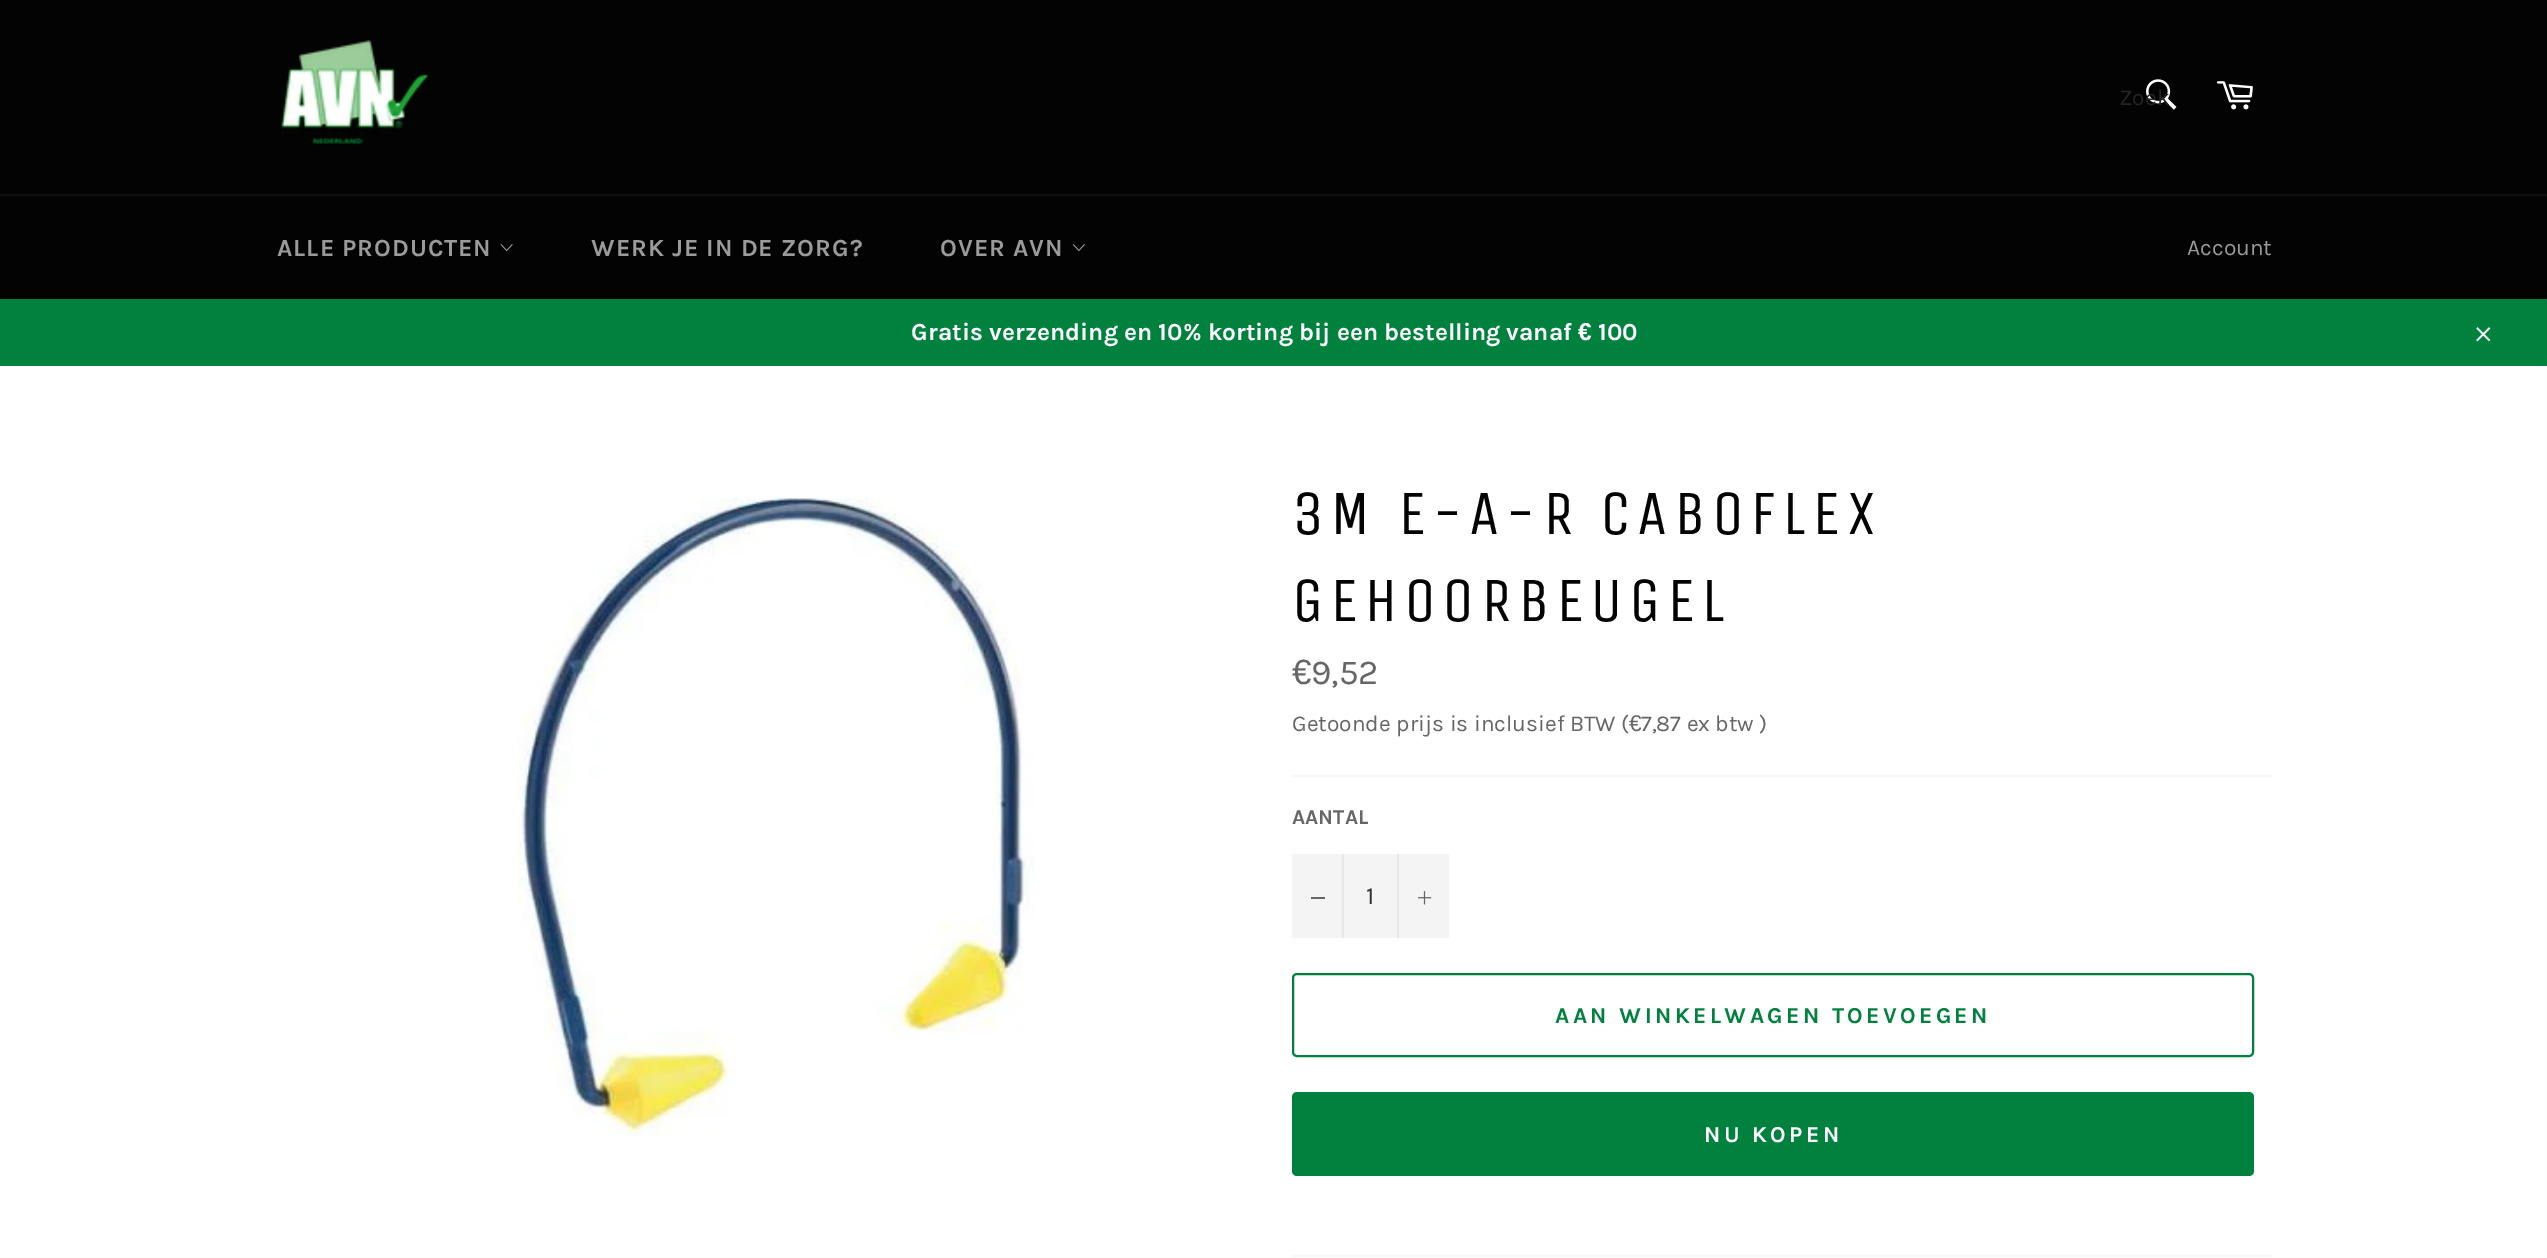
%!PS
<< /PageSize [2547 1258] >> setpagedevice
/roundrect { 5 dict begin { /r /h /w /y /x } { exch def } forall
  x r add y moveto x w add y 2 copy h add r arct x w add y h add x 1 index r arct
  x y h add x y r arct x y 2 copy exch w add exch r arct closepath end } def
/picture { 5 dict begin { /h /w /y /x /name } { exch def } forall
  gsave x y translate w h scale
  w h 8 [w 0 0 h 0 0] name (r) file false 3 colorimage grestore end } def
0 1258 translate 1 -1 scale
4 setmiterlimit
0.012 setgray
0 0 2547 1258 rectfill
(img1.rgb) 281 39 148 106 picture
(img2.rgb) 2146 79 31 31 picture
/Karla-Regular [22.75 0 0 -22.75 0 0] selectfont
0.141 setgray
2119 105 moveto (Zoek) show
(img3.rgb) 2216 81 37 29 picture
0.063 setgray
0 194 2547 2 rectfill
/Karla-Bold [24.5 0 0 -24.5 0 0] selectfont
0.604 setgray
277 256 moveto 1 0 (ALLE PRODUCTEN) ashow
(img4.rgb) 500 244 13 8 picture
591 256 moveto 1 0 (WERK JE IN DE ZORG?) ashow
940 256 moveto 1 0 (OVER AVN) ashow
(img5.rgb) 1072 244 13 8 picture
/Karla-Regular [22.75 0 0 -22.75 0 0] selectfont
2187 255 moveto (Account) show
0 0.51 0.243 setrgbcolor
0 299 2547 67 rectfill
/Karla-Bold [24.5 0 0 -24.5 0 0] selectfont
1 setgray
911 340 moveto (Gratis verzending en 10% korting bij een bestelling vanaf) show
/LiberationSans-Bold [24.5 0 0 -24.5 0 0] selectfont
1578 340 moveto (€) show
/Karla-Bold [24.5 0 0 -24.5 0 0] selectfont
1598 340 moveto (100) show
(img6.rgb) 2476 327 15 15 picture
0 366 2547 892 rectfill
(img7.rgb) 518 498 517 638 picture
/UnicaOne-Regular [63 0 0 -63 0 0] selectfont
0.012 setgray
1292 534 moveto 6.25 0 (3M E-A-R CABOFLEX) ashow
1292 621 moveto 6.25 0 (GEHOORBEUGEL) ashow
/LiberationSans-Regular [35 0 0 -35 0 0] selectfont
0.4 setgray
1292 684 moveto (€) show
/Karla-Regular [35 0 0 -35 0 0] selectfont
1311 684 moveto (9,52) show
/Karla-Regular [22.75 0 0 -22.75 0 0] selectfont
1292 731 moveto (Getoonde prijs is inclusief BTW \() show
/LiberationSans-Regular [22.75 0 0 -22.75 0 0] selectfont
1629 731 moveto (€) show
/Karla-Regular [22.75 0 0 -22.75 0 0] selectfont
1641 731 moveto (7,87 ex btw \)) show
0.969 setgray
1292 775 980 2 rectfill
/Karla-Bold [21 0 0 -21 0 0] selectfont
0.4 setgray
1292 824 moveto (AANTAL) show
0.957 setgray
1292 854 157 84 rectfill
0.906 setgray
1342 854 2 84 rectfill
0.4 setgray
1311 897 14 2 rectfill
/Karla-Regular [24.5 0 0 -24.5 0 0] selectfont
0.2 setgray
1366 904 moveto (1) show
0.906 setgray
1397 854 2 84 rectfill
(img8.rgb) 1418 891 14 14 picture
0 0.51 0.243 setrgbcolor
2 setlinewidth
1293 974 960 82 4 roundrect stroke
/Karla-Bold [22.75 0 0 -22.75 0 0] selectfont
1555 1023 moveto 3.4 0 (AAN WINKELWAGEN TOEVOEGEN) ashow
1292 1092 962 84 5 roundrect fill
1 setgray
1704 1142 moveto 3.4 0 (NU KOPEN) ashow
0.969 setgray
1292 1255 980 2 rectfill
showpage
